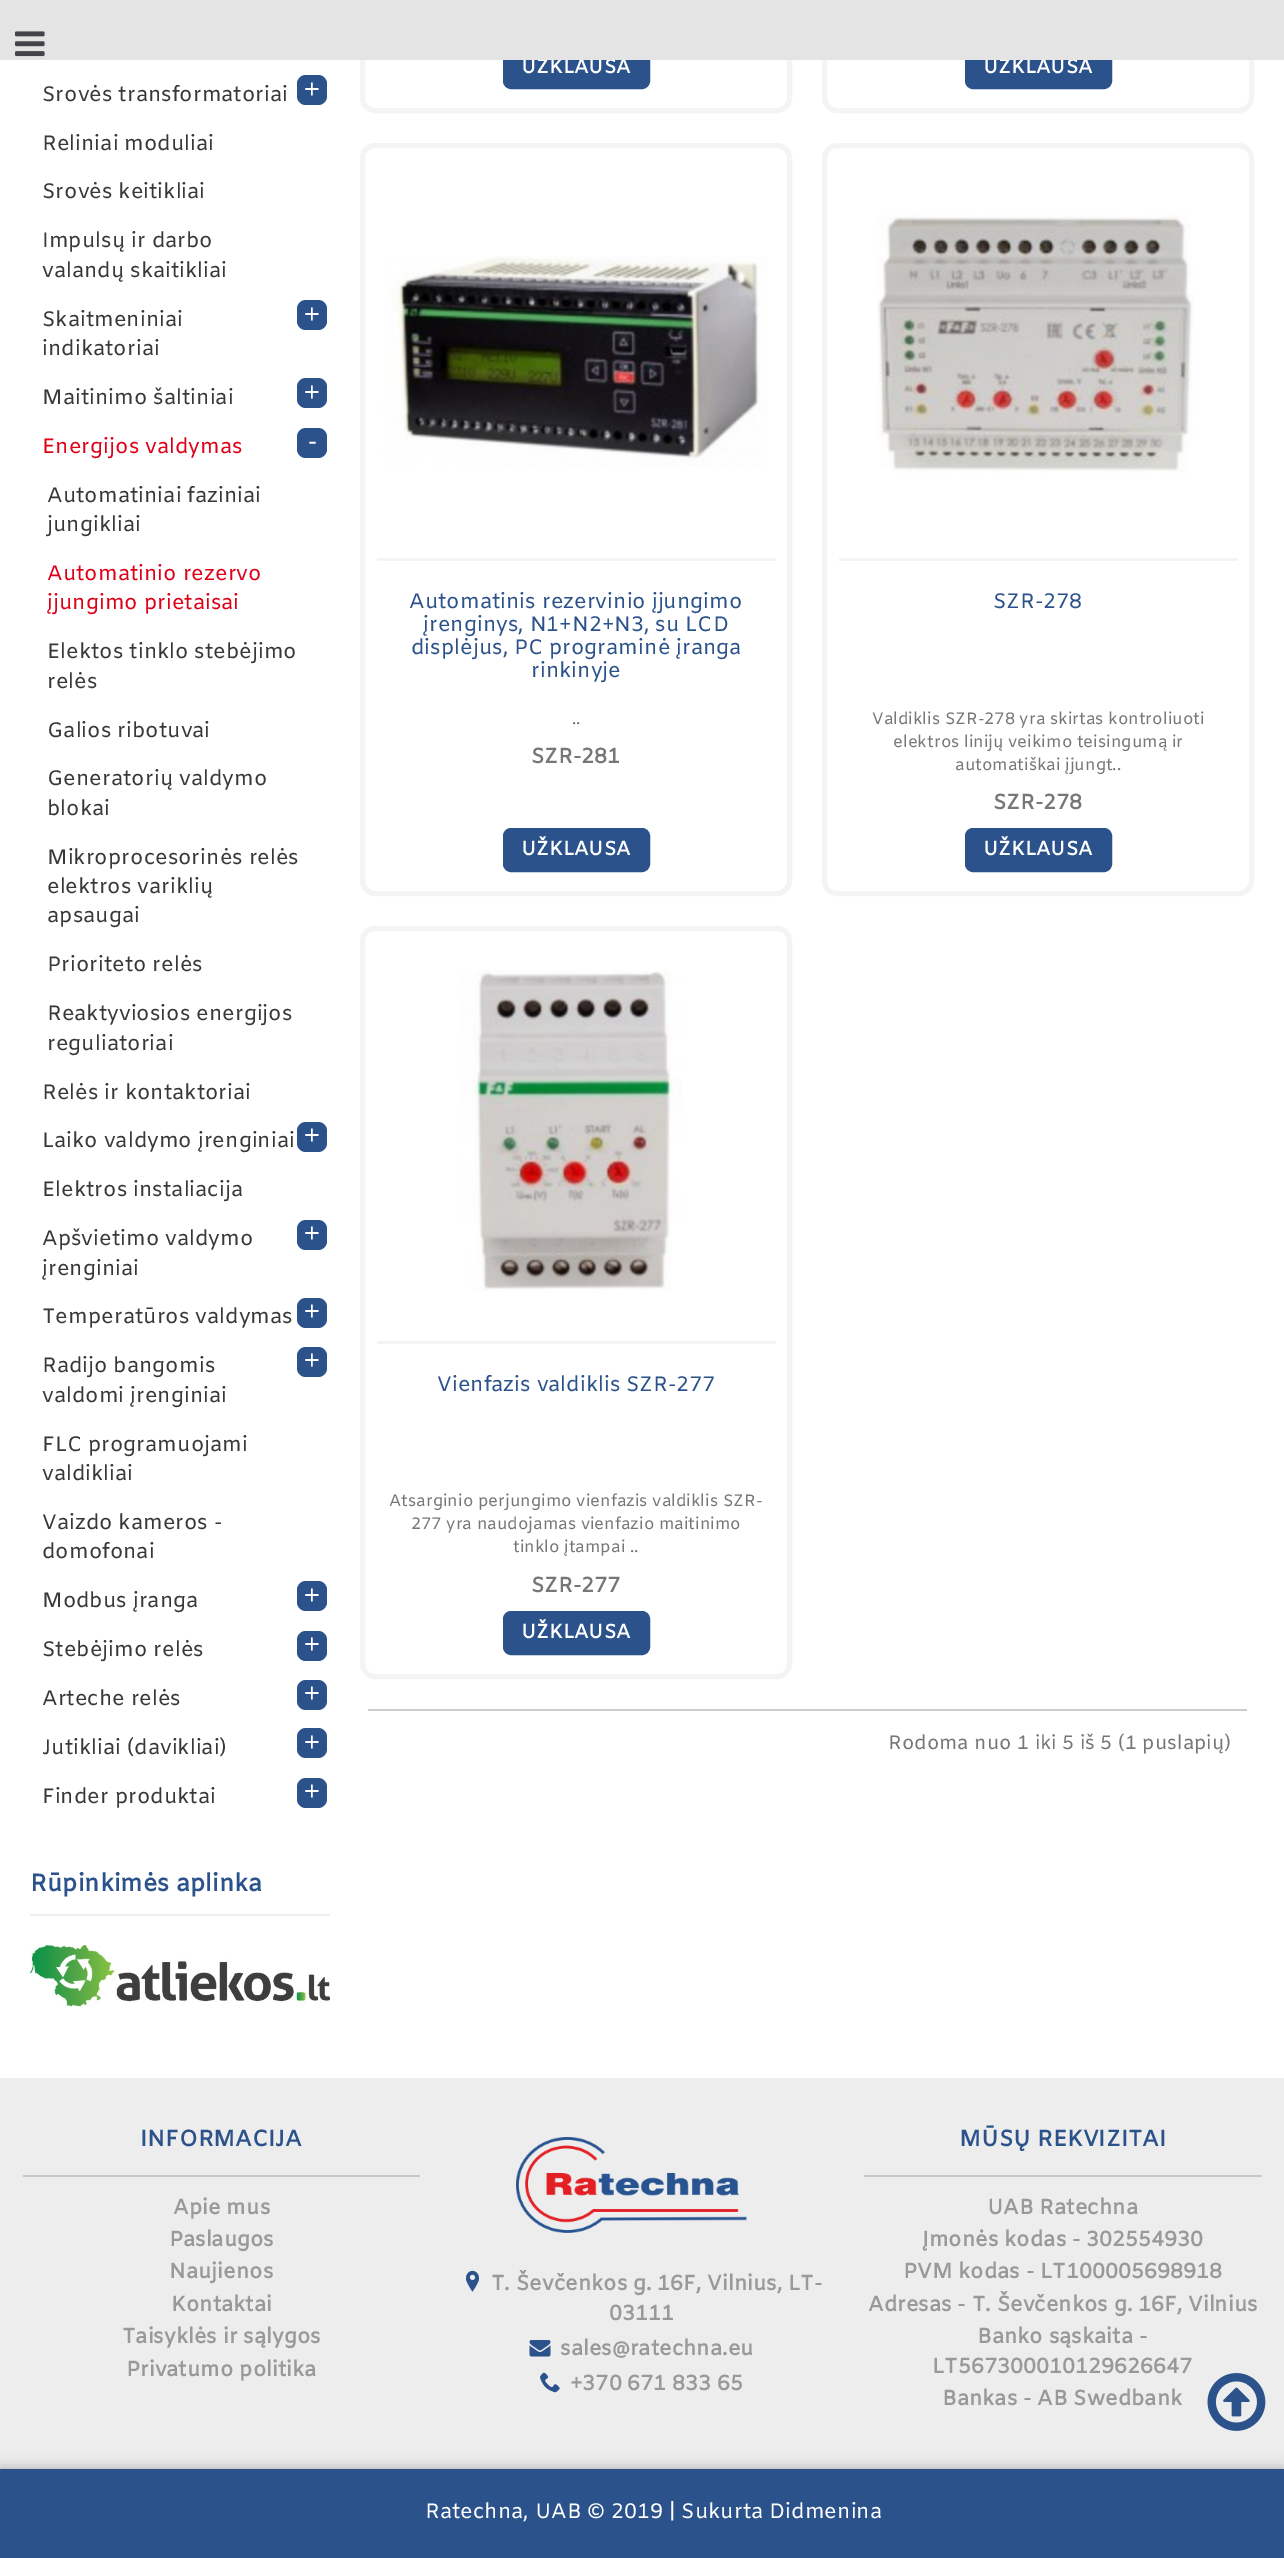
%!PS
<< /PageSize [1284 2558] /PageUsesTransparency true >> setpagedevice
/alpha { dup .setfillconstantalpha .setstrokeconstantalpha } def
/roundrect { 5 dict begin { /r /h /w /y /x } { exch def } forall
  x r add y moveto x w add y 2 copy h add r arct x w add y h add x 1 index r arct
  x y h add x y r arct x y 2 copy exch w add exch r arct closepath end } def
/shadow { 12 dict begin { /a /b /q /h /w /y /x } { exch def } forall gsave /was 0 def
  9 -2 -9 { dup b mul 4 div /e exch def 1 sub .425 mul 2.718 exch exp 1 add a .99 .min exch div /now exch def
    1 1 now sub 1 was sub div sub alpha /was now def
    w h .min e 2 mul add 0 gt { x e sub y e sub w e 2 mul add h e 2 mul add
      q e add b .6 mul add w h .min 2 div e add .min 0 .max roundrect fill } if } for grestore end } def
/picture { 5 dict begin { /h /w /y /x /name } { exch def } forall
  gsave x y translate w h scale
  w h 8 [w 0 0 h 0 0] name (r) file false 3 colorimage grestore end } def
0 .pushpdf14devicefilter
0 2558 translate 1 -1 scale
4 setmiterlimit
1 setgray
0 0 1284 2558 rectfill
0.957 setgray
5 setlinewidth
362.5 -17.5 427 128 12.5 roundrect stroke
0.169 0.322 0.545 setrgbcolor
504.5 46.5 144 41 6.5 roundrect gsave fill grestore
3 setlinewidth
stroke
/Amiko-Bold [19.5 0 0 -19.5 0 0] selectfont
1 setgray
521 73 moveto (UŽKLAUSA) show
0.957 setgray
5 setlinewidth
824.5 -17.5 427 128 12.5 roundrect stroke
0.169 0.322 0.545 setrgbcolor
966.5 46.5 144 41 6.5 roundrect gsave fill grestore
3 setlinewidth
stroke
1 setgray
983 73 moveto (UŽKLAUSA) show
0.894 setgray
0 0 1284 60 rectfill
(img1.rgb) 15 31 30 26 picture
/Amiko-Regular [21 0 0 -21 0 0] selectfont
0.22 setgray
42 101 moveto (Srovės transformatoriai) show
0.169 0.322 0.545 setrgbcolor
297 75 30 30 9 roundrect fill
/LiberationSans-Regular [27 0 0 -27 0 0] selectfont
1 setgray
304 98 moveto (+) show
/Amiko-Regular [21 0 0 -21 0 0] selectfont
0.22 setgray
42 150 moveto (Reliniai moduliai) show
42 198 moveto (Srovės keitikliai) show
42 247 moveto (Impulsų ir darbo) show
42 277 moveto (valandų skaitikliai) show
42 326 moveto (Skaitmeniniai) show
42 355 moveto (indikatoriai) show
0.169 0.322 0.545 setrgbcolor
297 300 30 30 9 roundrect fill
/LiberationSans-Regular [27 0 0 -27 0 0] selectfont
1 setgray
304 323 moveto (+) show
/Amiko-Regular [21 0 0 -21 0 0] selectfont
0.22 setgray
42 404 moveto (Maitinimo šaltiniai) show
0.169 0.322 0.545 setrgbcolor
297 378 30 30 9 roundrect fill
/LiberationSans-Regular [27 0 0 -27 0 0] selectfont
1 setgray
304 401 moveto (+) show
/Amiko-Regular [21 0 0 -21 0 0] selectfont
0.867 0 0.09 setrgbcolor
42 453 moveto (Energijos valdymas) show
0.169 0.322 0.545 setrgbcolor
297 428 30 30 9 roundrect fill
/LiberationSans-Regular [27 0 0 -27 0 0] selectfont
1 setgray
308 450 moveto (-) show
/Amiko-Regular [21 0 0 -21 0 0] selectfont
0.22 setgray
47 502 moveto (Automatiniai faziniai) show
47 531 moveto (jungikliai) show
0.867 0 0.09 setrgbcolor
47 580 moveto (Automatinio rezervo) show
47 609 moveto (įjungimo prietaisai) show
0.22 setgray
47 658 moveto (Elektos tinklo stebėjimo) show
47 688 moveto (relės) show
47 737 moveto (Galios ribotuvai) show
47 785 moveto (Generatorių valdymo) show
47 815 moveto (blokai) show
47 864 moveto (Mikroprocesorinės relės) show
47 893 moveto (elektros variklių) show
47 922 moveto (apsaugai) show
47 971 moveto (Prioriteto relės) show
47 1020 moveto (Reaktyviosios energijos) show
47 1050 moveto (reguliatoriai) show
42 1099 moveto (Relės ir kontaktoriai) show
42 1147 moveto (Laiko valdymo įrenginiai) show
0.169 0.322 0.545 setrgbcolor
297 1122 30 30 9 roundrect fill
/LiberationSans-Regular [27 0 0 -27 0 0] selectfont
1 setgray
304 1144 moveto (+) show
/Amiko-Regular [21 0 0 -21 0 0] selectfont
0.22 setgray
42 1196 moveto (Elektros instaliacija) show
42 1245 moveto (Apšvietimo valdymo) show
42 1275 moveto (įrenginiai) show
0.169 0.322 0.545 setrgbcolor
297 1220 30 30 9 roundrect fill
/LiberationSans-Regular [27 0 0 -27 0 0] selectfont
1 setgray
304 1242 moveto (+) show
/Amiko-Regular [21 0 0 -21 0 0] selectfont
0.22 setgray
42 1323 moveto (Temperatūros valdymas) show
0.169 0.322 0.545 setrgbcolor
297 1298 30 30 9 roundrect fill
/LiberationSans-Regular [27 0 0 -27 0 0] selectfont
1 setgray
304 1320 moveto (+) show
/Amiko-Regular [21 0 0 -21 0 0] selectfont
0.22 setgray
42 1372 moveto (Radijo bangomis) show
42 1402 moveto (valdomi įrenginiai) show
0.169 0.322 0.545 setrgbcolor
297 1347 30 30 9 roundrect fill
/LiberationSans-Regular [27 0 0 -27 0 0] selectfont
1 setgray
304 1369 moveto (+) show
/Amiko-Regular [21 0 0 -21 0 0] selectfont
0.22 setgray
42 1451 moveto (FLC programuojami) show
42 1480 moveto (valdikliai) show
42 1529 moveto (Vaizdo kameros -) show
42 1558 moveto (domofonai) show
42 1607 moveto (Modbus įranga) show
0.169 0.322 0.545 setrgbcolor
297 1581 30 30 9 roundrect fill
/LiberationSans-Regular [27 0 0 -27 0 0] selectfont
1 setgray
304 1604 moveto (+) show
/Amiko-Regular [21 0 0 -21 0 0] selectfont
0.22 setgray
42 1656 moveto (Stebėjimo relės) show
0.169 0.322 0.545 setrgbcolor
297 1631 30 30 9 roundrect fill
/LiberationSans-Regular [27 0 0 -27 0 0] selectfont
1 setgray
304 1653 moveto (+) show
/Amiko-Regular [21 0 0 -21 0 0] selectfont
0.22 setgray
42 1705 moveto (Arteche relės) show
0.169 0.322 0.545 setrgbcolor
297 1680 30 30 9 roundrect fill
/LiberationSans-Regular [27 0 0 -27 0 0] selectfont
1 setgray
304 1702 moveto (+) show
/Amiko-Regular [21 0 0 -21 0 0] selectfont
0.22 setgray
42 1754 moveto (Jutikliai \(davikliai\)) show
0.169 0.322 0.545 setrgbcolor
297 1728 30 30 9 roundrect fill
/LiberationSans-Regular [27 0 0 -27 0 0] selectfont
1 setgray
304 1751 moveto (+) show
/Amiko-Regular [21 0 0 -21 0 0] selectfont
0.22 setgray
42 1803 moveto (Finder produktai) show
0.169 0.322 0.545 setrgbcolor
297 1778 30 30 9 roundrect fill
/LiberationSans-Regular [27 0 0 -27 0 0] selectfont
1 setgray
304 1800 moveto (+) show
0.933 setgray
30 1914 300 2 rectfill
/Amiko-Bold [24 0 0 -24 0 0] selectfont
0.169 0.322 0.545 setrgbcolor
30 1891 moveto (Rūpinkimės aplinka) show
(img2.rgb) 30 1945 300 62 picture
0.957 setgray
5 setlinewidth
362.5 145.5 427 748 12.5 roundrect stroke
(img3.rgb) 383 256 385 210 picture
377 558 399 3 rectfill
/Amiko-Regular [21 0 0 -21 0 0] selectfont
0.169 0.322 0.545 setrgbcolor
409 608 moveto (Automatinis rezervinio įjungimo) show
423 631 moveto (įrenginys, N1+N2+N3, su LCD) show
411 654 moveto (displėjus, PC programinė įranga) show
531 677 moveto (rinkinyje) show
/Amiko-Regular [16.5 0 0 -16.5 0 0] selectfont
0.467 setgray
572 724 moveto (..) show
/Amiko-Bold [21 0 0 -21 0 0] selectfont
531 763 moveto (SZR-281) show
0.169 0.322 0.545 setrgbcolor
504.5 829.5 144 41 6.5 roundrect gsave fill grestore
3 setlinewidth
stroke
/Amiko-Bold [19.5 0 0 -19.5 0 0] selectfont
1 setgray
521 855 moveto (UŽKLAUSA) show
0.957 setgray
5 setlinewidth
824.5 145.5 427 748 12.5 roundrect stroke
(img4.rgb) 877 215 316 258 picture
839 558 399 3 rectfill
/Amiko-Regular [21 0 0 -21 0 0] selectfont
0.169 0.322 0.545 setrgbcolor
993 608 moveto (SZR-278) show
/Amiko-Regular [16.5 0 0 -16.5 0 0] selectfont
0.467 setgray
872 724 moveto (Valdiklis SZR-278 yra skirtas kontroliuoti) show
893 747 moveto (elektros linijų veikimo teisingumą ir) show
955 770 moveto (automatiškai įjungt..) show
/Amiko-Bold [21 0 0 -21 0 0] selectfont
993 809 moveto (SZR-278) show
0.169 0.322 0.545 setrgbcolor
966.5 829.5 144 41 6.5 roundrect gsave fill grestore
3 setlinewidth
stroke
/Amiko-Bold [19.5 0 0 -19.5 0 0] selectfont
1 setgray
983 855 moveto (UŽKLAUSA) show
0.957 setgray
5 setlinewidth
362.5 928.5 427 748 12.5 roundrect stroke
(img5.rgb) 460 970 222 322 picture
377 1341 399 3 rectfill
/Amiko-Regular [21 0 0 -21 0 0] selectfont
0.169 0.322 0.545 setrgbcolor
437 1391 moveto (Vienfazis valdiklis SZR-277) show
/Amiko-Regular [16.5 0 0 -16.5 0 0] selectfont
0.467 setgray
389 1506 moveto (Atsarginio perjungimo vienfazis valdiklis SZR-) show
411 1529 moveto (277 yra naudojamas vienfazio maitinimo) show
513 1552 moveto (tinklo įtampai ..) show
/Amiko-Bold [21 0 0 -21 0 0] selectfont
531 1592 moveto (SZR-277) show
0.169 0.322 0.545 setrgbcolor
504.5 1612.5 144 41 6.5 roundrect gsave fill grestore
3 setlinewidth
stroke
/Amiko-Bold [19.5 0 0 -19.5 0 0] selectfont
1 setgray
521 1638 moveto (UŽKLAUSA) show
0.8 setgray
368 1709 879 2 rectfill
/Amiko-Regular [19.5 0 0 -19.5 0 0] selectfont
0.467 setgray
888 1749 moveto (Rodoma nuo 1 iki 5 iš 5 \(1 puslapių\)) show
0.929 setgray
0 2078 1284 391 rectfill
0.78 setgray
23 2175 397 2 rectfill
/Amiko-Bold [22.5 0 0 -22.5 0 0] selectfont
0.169 0.322 0.545 setrgbcolor
140 2146 moveto (INFORMACIJA) show
/Amiko-Bold [21 0 0 -21 0 0] selectfont
0.6 setgray
173 2214 moveto (Apie mus) show
169 2246 moveto (Paslaugos) show
169 2278 moveto (Naujienos) show
171 2311 moveto (Kontaktai) show
122 2343 moveto (Taisyklės ir sąlygos) show
126 2376 moveto (Privatumo politika) show
(img6.rgb) 516 2137 231 96 picture
(img7.rgb) 465 2270 15 22 picture
491 2290 moveto (T. Ševčenkos g. 16F, Vilnius, LT-) show
609 2320 moveto (03111) show
(img8.rgb) 529 2340 22 17 picture
560 2355 moveto (sales@ratechna.eu) show
(img9.rgb) 540 2372 20 21 picture
570 2390 moveto (+370 671 833 65) show
0.78 setgray
864 2175 398 2 rectfill
/Amiko-Bold [22.5 0 0 -22.5 0 0] selectfont
0.169 0.322 0.545 setrgbcolor
959 2146 moveto (MŪSŲ REKVIZITAI) show
/Amiko-Bold [21 0 0 -21 0 0] selectfont
0.6 setgray
987 2214 moveto (UAB Ratechna) show
922 2246 moveto (Įmonės kodas - 302554930) show
903 2278 moveto (PVM kodas - LT100005698918) show
868 2311 moveto (Adresas - T. Ševčenkos g. 16F, Vilnius) show
977 2343 moveto (Banko sąskaita -) show
932 2373 moveto (LT567300010129626647) show
942 2405 moveto (Bankas - AB Swedbank) show
0 setgray
0 2469 1284 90 0 7 0.3 shadow
0.169 0.322 0.545 setrgbcolor
0 2469 1284 89 rectfill
/Amiko-Regular [21 0 0 -21 0 0] selectfont
1 setgray
425 2518 moveto (Ratechna, UAB © 2019 | Sukurta Didmenina) show
(img10.rgb) 1207 2373 59 58 picture
.poppdf14devicefilter showpage
